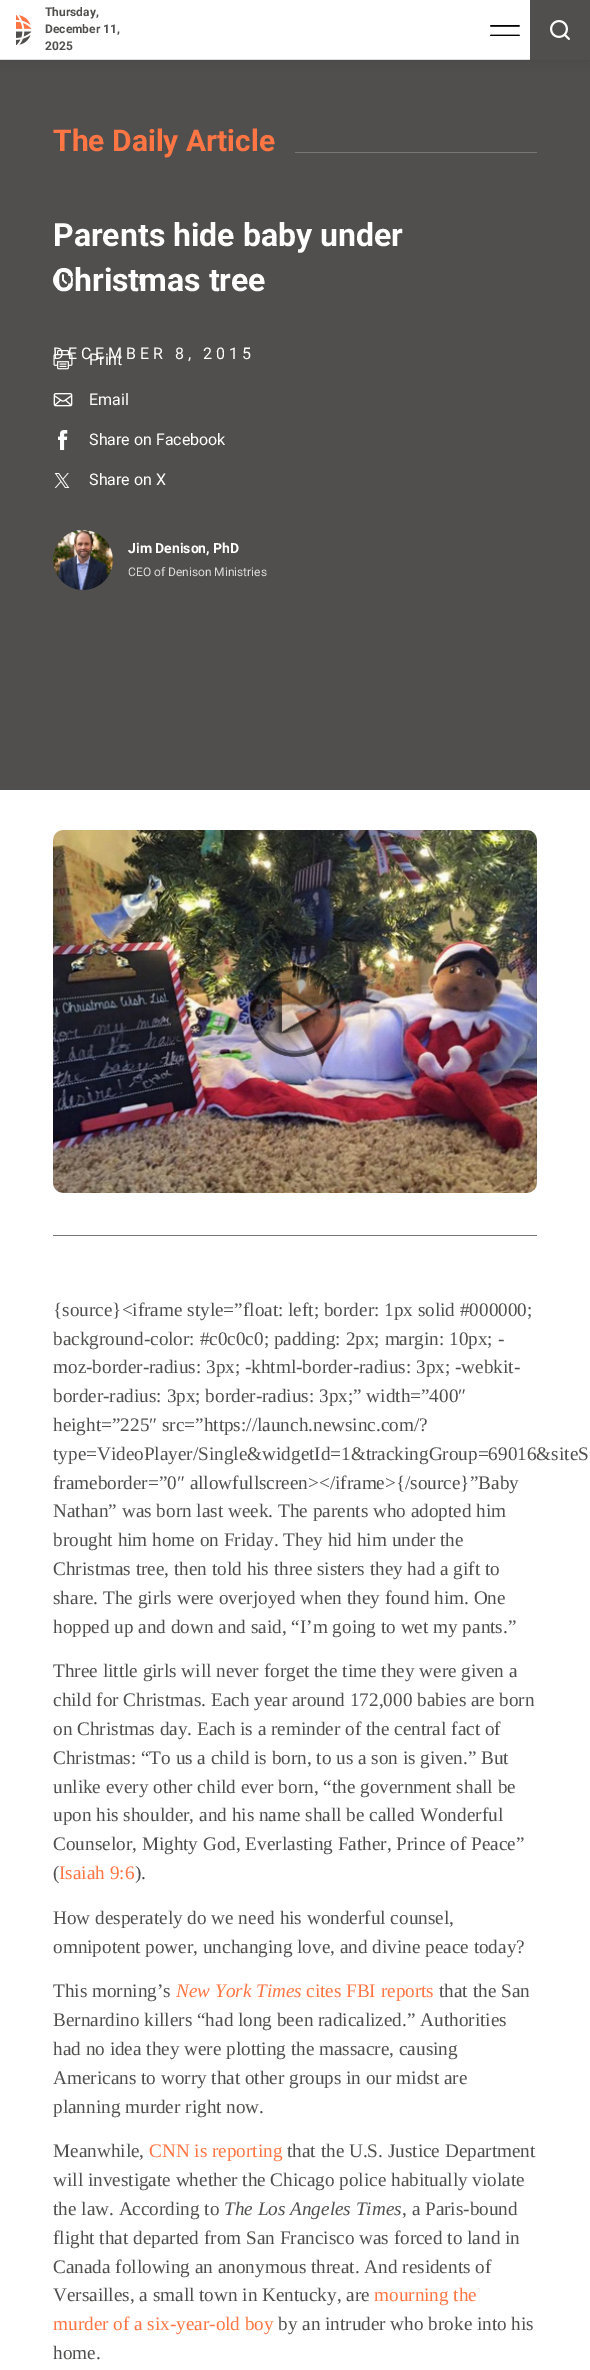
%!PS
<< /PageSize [590 2370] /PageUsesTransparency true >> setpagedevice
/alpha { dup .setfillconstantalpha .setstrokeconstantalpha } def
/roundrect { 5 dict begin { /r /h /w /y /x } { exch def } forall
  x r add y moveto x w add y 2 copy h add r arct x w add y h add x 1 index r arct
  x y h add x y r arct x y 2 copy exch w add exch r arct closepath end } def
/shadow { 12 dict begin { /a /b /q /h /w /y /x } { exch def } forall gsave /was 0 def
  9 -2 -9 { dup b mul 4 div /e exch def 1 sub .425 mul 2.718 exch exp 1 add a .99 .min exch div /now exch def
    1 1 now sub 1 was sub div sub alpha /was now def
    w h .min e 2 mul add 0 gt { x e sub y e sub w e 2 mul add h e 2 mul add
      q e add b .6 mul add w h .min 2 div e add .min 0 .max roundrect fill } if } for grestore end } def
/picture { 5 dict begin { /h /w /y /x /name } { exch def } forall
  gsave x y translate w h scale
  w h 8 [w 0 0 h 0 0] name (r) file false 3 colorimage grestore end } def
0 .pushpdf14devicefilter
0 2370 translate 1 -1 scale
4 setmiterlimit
1 setgray
0 0 590 2370 rectfill
0.314 0.31 0.306 setrgbcolor
0 60 590 730 rectfill
0 setgray
0 0 590 60 0 10 0.1 shadow
1 setgray
0 0 530 59 rectfill
0.867 setgray
0 59 530 1 rectfill
(img1.rgb) 16 15 16 30 picture
/Roboto-Bold [12 0 0 -12 0 0] selectfont
0.314 0.31 0.306 setrgbcolor
45 16 moveto (Thursday,) show
45 33 moveto (December 11,) show
45 50 moveto (2025) show
(img2.rgb) 490 25 30 11 picture
530 0 60 60 rectfill
(img3.rgb) 550 20 20 20 picture
0.467 setgray
295 152 242 1 rectfill
/Roboto-Bold [30 0 0 -30 0 0] selectfont
1 0.459 0.263 setrgbcolor
53 151 moveto (The Daily Article) show
/Roboto-Bold [32 0 0 -32 0 0] selectfont
1 setgray
53 246 moveto (Parents hide baby under) show
53 291 moveto (Christmas tree) show
/Roboto-Regular [16 0 0 -16 0 0] selectfont
53 359 moveto 4 0 (DECEMBER 8, 2015) ashow
(img4.rgb) 53 271 20 18 picture
138 285 moveto (t) show
(img5.rgb) 53 350 20 20 picture
89 365 moveto (Print) show
(img6.rgb) 53 393 20 14 picture
89 405 moveto (Email) show
(img7.rgb) 58 430 10 20 picture
89 445 moveto (Share on Facebook) show
(img8.rgb) 54 473 16 15 picture
89 485 moveto (Share on X) show
(img9.rgb) 53 530 60 60 picture
/Roboto-Bold [14 0 0 -14 0 0] selectfont
128 553 moveto (Jim Denison, PhD) show
/Roboto-Regular [12 0 0 -12 0 0] selectfont
0.863 setgray
128 576 moveto (CEO of Denison Ministries) show
(img10.rgb) 53 830 484 363 picture
0.467 setgray
53 1235 484 1 rectfill
/LiberationSerif-Regular [19.2 0 0 -19.2 0 0] selectfont
0.314 0.31 0.306 setrgbcolor
53 1316 moveto ({source}<iframe style=”float: left; border: 1px solid #000000;) show
53 1345 moveto (background-color: #c0c0c0; padding: 2px; margin: 10px; -) show
53 1373 moveto (moz-border-radius: 3px; -khtml-border-radius: 3px; -webkit-) show
53 1402 moveto (border-radius: 3px; border-radius: 3px;” width=”400″) show
53 1431 moveto (height=”225″ src=”https://launch.newsinc.com/?) show
53 1460 moveto (type=VideoPlayer/Single&widgetId=1&trackingGroup=69016&siteS) show
53 1489 moveto (frameborder=”0″ allowfullscreen></iframe>{/source}”Baby) show
53 1517 moveto (Nathan” was born last week. The parents who adopted him) show
53 1546 moveto (brought him home on Friday. They hid him under the) show
53 1575 moveto (Christmas tree, then told his three sisters they had a gift to) show
53 1604 moveto (share. The girls were overjoyed when they found him. One) show
53 1633 moveto (hopped up and down and said, “I’m going to wet my pants.”) show
53 1677 moveto (Three little girls will never forget the time they were given a) show
53 1706 moveto (child for Christmas. Each year around 172,000 babies are born) show
53 1735 moveto (on Christmas day. Each is a reminder of the central fact of) show
53 1764 moveto (Christmas: “To us a child is born, to us a son is given.” But) show
53 1793 moveto (unlike every other child ever born, “the government shall be) show
53 1821 moveto (upon his shoulder, and his name shall be called Wonderful) show
53 1850 moveto (Counselor, Mighty God, Everlasting Father, Prince of Peace”) show
53 1879 moveto (\() show
1 0.459 0.263 setrgbcolor
59 1879 moveto (Isaiah 9:6) show
0.314 0.31 0.306 setrgbcolor
135 1879 moveto (\).) show
53 1924 moveto (How desperately do we need his wonderful counsel,) show
53 1953 moveto (omnipotent power, unchanging love, and divine peace today?) show
53 1997 moveto (This morning’s) show
/LiberationSerif-Italic [19.2 0 0 -19.2 0 0] selectfont
1 0.459 0.263 setrgbcolor
176 1997 moveto (New York Times) show
/LiberationSerif-Regular [19.2 0 0 -19.2 0 0] selectfont
306 1997 moveto (cites FBI reports) show
0.314 0.31 0.306 setrgbcolor
439 1997 moveto (that the San) show
53 2026 moveto (Bernardino killers “had long been radicalized.” Authorities) show
53 2055 moveto (had no idea they were plotting the massacre, causing) show
53 2084 moveto (Americans to worry that other groups in our midst are) show
53 2113 moveto (planning murder right now.) show
53 2157 moveto (Meanwhile,) show
1 0.459 0.263 setrgbcolor
149 2157 moveto (CNN is reporting) show
0.314 0.31 0.306 setrgbcolor
287 2157 moveto (that the U.S. Justice Department) show
53 2186 moveto (will investigate whether the Chicago police habitually violate) show
53 2215 moveto (the law. According to) show
/LiberationSerif-Italic [19.2 0 0 -19.2 0 0] selectfont
224 2215 moveto (The Los Angeles Times) show
/LiberationSerif-Regular [19.2 0 0 -19.2 0 0] selectfont
402 2215 moveto (, a Paris-bound) show
53 2244 moveto (flight that departed from San Francisco was forced to land in) show
53 2273 moveto (Canada following an anonymous threat. And residents of) show
53 2301 moveto (Versailles, a small town in Kentucky, are) show
1 0.459 0.263 setrgbcolor
374 2301 moveto (mourning the) show
53 2330 moveto (murder of a six-year-old boy) show
0.314 0.31 0.306 setrgbcolor
278 2330 moveto (by an intruder who broke into his) show
53 2359 moveto (home.) show
.poppdf14devicefilter showpage
